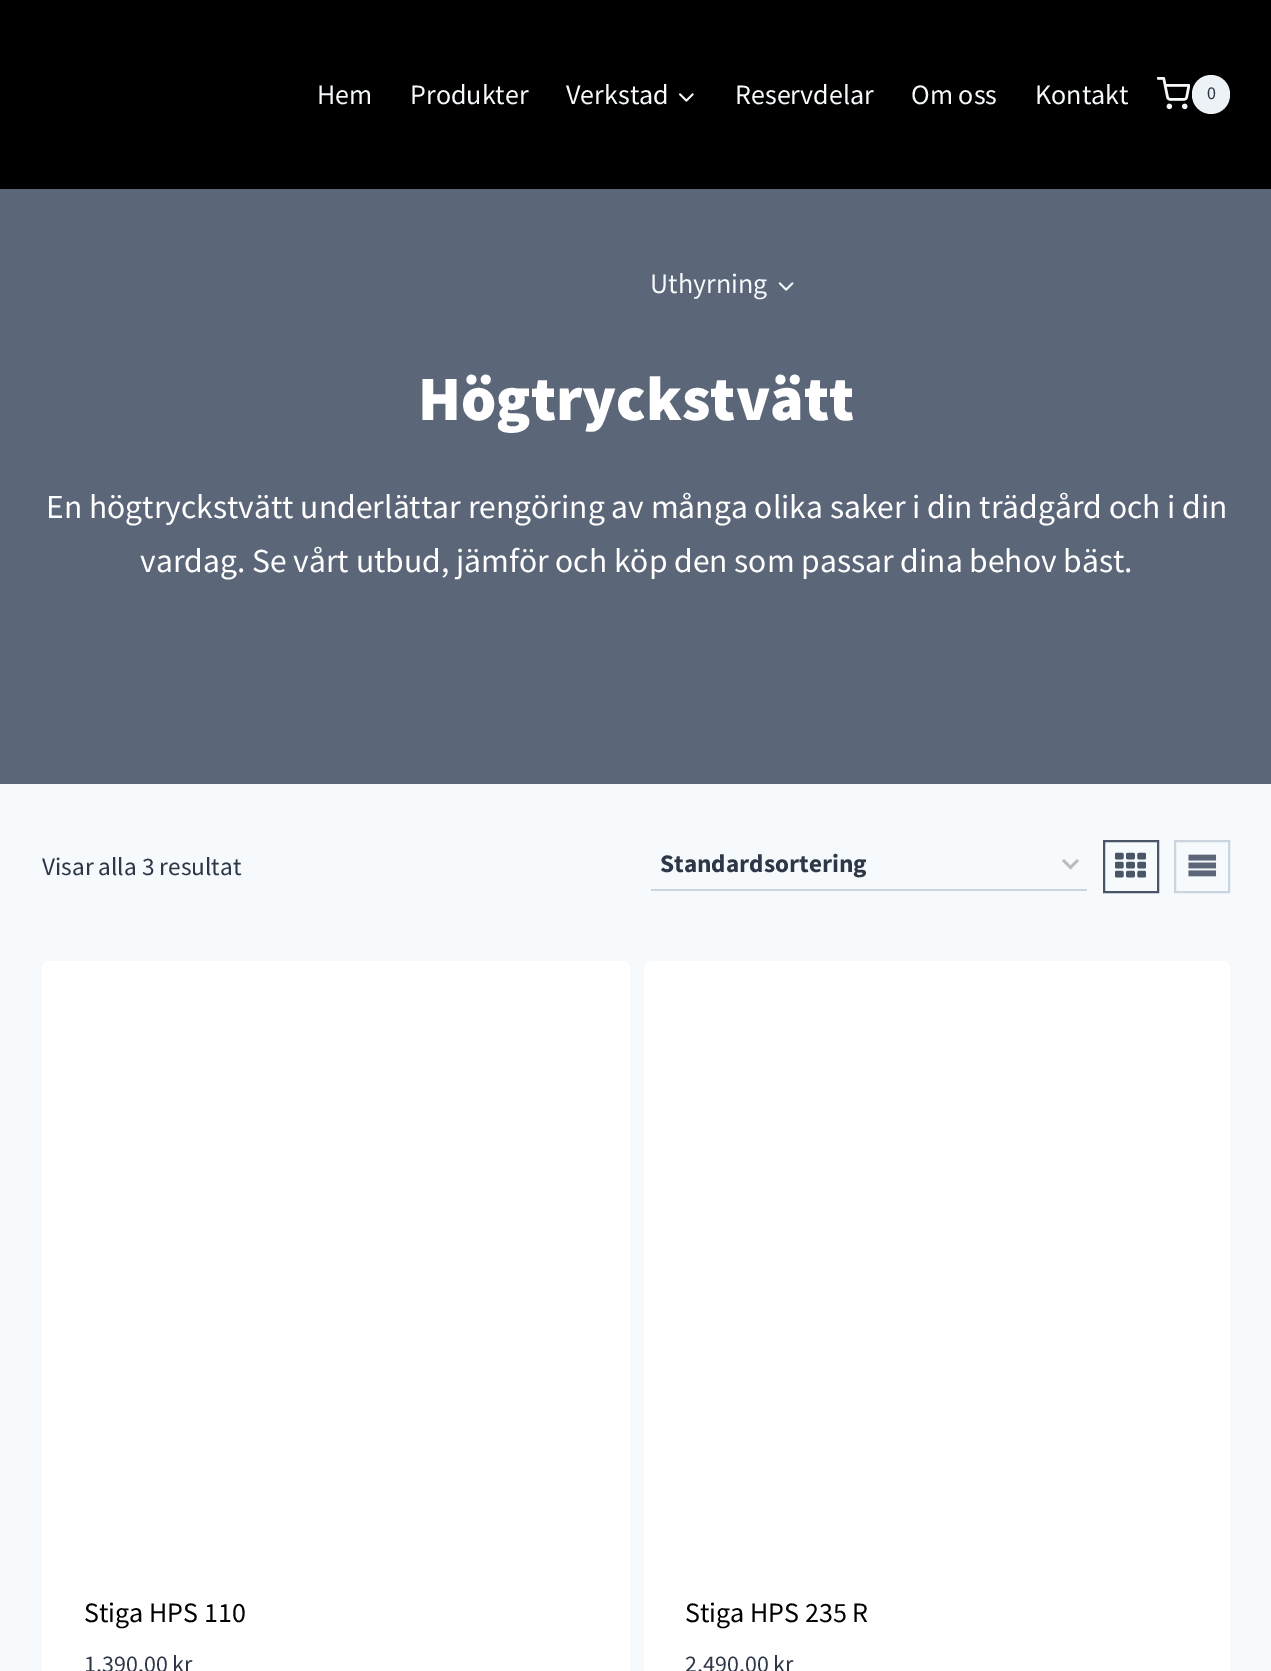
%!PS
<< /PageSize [1271 1671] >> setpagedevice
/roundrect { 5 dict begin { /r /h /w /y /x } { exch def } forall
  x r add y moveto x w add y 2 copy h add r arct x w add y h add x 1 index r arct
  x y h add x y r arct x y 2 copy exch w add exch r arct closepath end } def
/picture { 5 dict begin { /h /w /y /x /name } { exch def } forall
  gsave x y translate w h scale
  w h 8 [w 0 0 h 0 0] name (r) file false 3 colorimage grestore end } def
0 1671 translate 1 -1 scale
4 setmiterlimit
0.969 0.98 0.988 setrgbcolor
0 0 1271 1671 rectfill
0 setgray
0 0 1271 189 rectfill
/SourceSansPro-Regular [28 0 0 -28 0 0] selectfont
0.969 0.98 0.988 setrgbcolor
317 104 moveto (Hem) show
410 104 moveto (Produkter) show
566 104 moveto (Verkstad) show
(img1.rgb) 679 93 15 9 picture
735 104 moveto (Reservdelar) show
911 104 moveto (Om oss) show
1035 104 moveto (Kontakt) show
0.361 0.4 0.475 setrgbcolor
0 189 1271 595 rectfill
0.969 0.98 0.988 setrgbcolor
650 293 moveto (Uthyrning) show
(img2.rgb) 778 282 16 9 picture
(img3.rgb) 1157 77 33 33 picture
0.929 0.949 0.969 setrgbcolor
1192 75 38 39 19 roundrect fill
/SourceSansPro-Regular [18 0 0 -18 0 0] selectfont
0.176 0.216 0.282 setrgbcolor
1207 99 moveto (0) show
/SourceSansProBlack-Black [63 0 0 -63 0 0] selectfont
1 setgray
418 420 moveto (Högtryckstvätt) show
/SourceSansPro-Regular [33.6 0 0 -33.6 0 0] selectfont
46 518 moveto (En högtryckstvätt underlättar rengöring av många olika saker i din trädgård och i din) show
140 572 moveto (vardag. Se vårt utbud, jämför och köp den som passar dina behov bäst.) show
/SourceSansPro-Regular [25.25 0 0 -25.25 0 0] selectfont
0.176 0.216 0.282 setrgbcolor
42 875 moveto (Visar alla 3 resultat) show
0.733 setgray
2.5 setlinewidth
newpath 1063 860 moveto 1070.5 867.5 lineto 1078 860 lineto stroke
0.796 0.835 0.878 setrgbcolor
651 889 436 2 rectfill
/SourceSansPro-Bold [25.25 0 0 -25.25 0 0] selectfont
0.176 0.216 0.282 setrgbcolor
660 872 moveto (Standardsortering) show
0.29 0.333 0.408 setrgbcolor
2 setlinewidth
1104 841 54 51 rectstroke
(img4.rgb) 1115 852 31 26 picture
0.796 0.835 0.878 setrgbcolor
1175 841 54 51 rectstroke
(img5.rgb) 1188 854 29 23 picture
1 setgray
42 961 588 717 7 roundrect fill
/SourceSansPro-Regular [28 0 0 -28 0 0] selectfont
0 setgray
84 1622 moveto (Stiga HPS 110) show
/SourceSansPro-Regular [24 0 0 -24 0 0] selectfont
0.176 0.216 0.282 setrgbcolor
84 1672 moveto (1,390.00 kr) show
1 setgray
644 961 586 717 7 roundrect fill
/SourceSansPro-Regular [28 0 0 -28 0 0] selectfont
0 setgray
685 1622 moveto (Stiga HPS 235 R) show
/SourceSansPro-Regular [24 0 0 -24 0 0] selectfont
0.176 0.216 0.282 setrgbcolor
685 1672 moveto (2,490.00 kr) show
showpage
